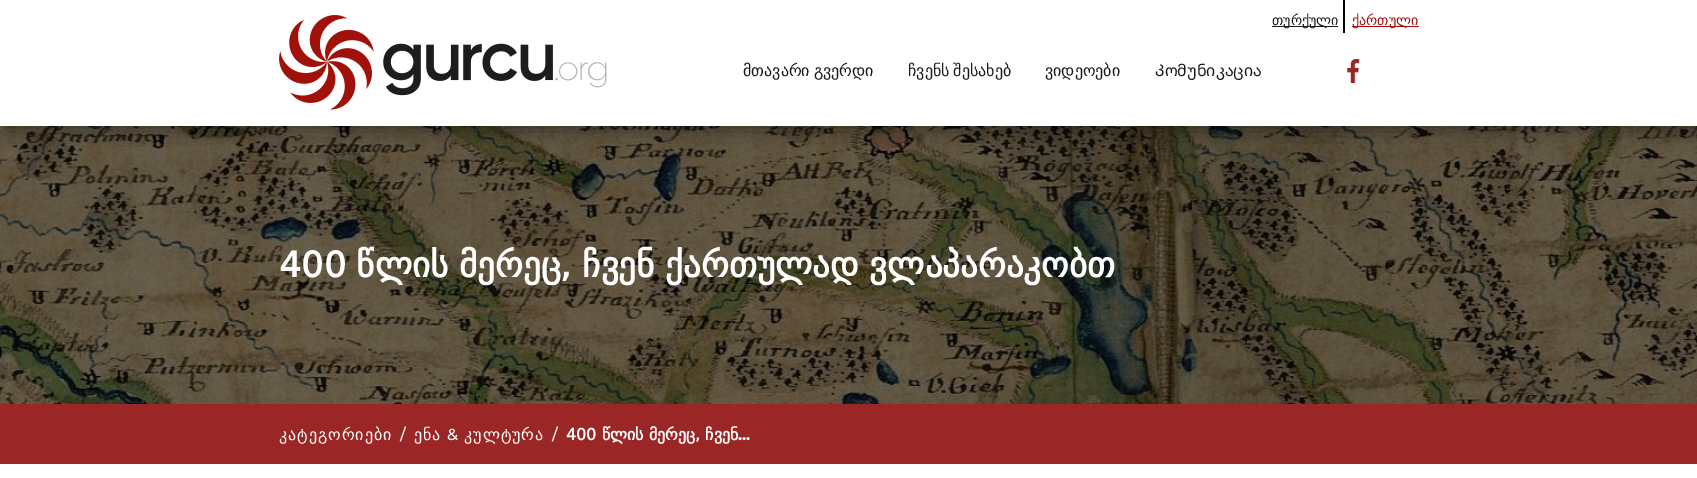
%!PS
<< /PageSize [1697 478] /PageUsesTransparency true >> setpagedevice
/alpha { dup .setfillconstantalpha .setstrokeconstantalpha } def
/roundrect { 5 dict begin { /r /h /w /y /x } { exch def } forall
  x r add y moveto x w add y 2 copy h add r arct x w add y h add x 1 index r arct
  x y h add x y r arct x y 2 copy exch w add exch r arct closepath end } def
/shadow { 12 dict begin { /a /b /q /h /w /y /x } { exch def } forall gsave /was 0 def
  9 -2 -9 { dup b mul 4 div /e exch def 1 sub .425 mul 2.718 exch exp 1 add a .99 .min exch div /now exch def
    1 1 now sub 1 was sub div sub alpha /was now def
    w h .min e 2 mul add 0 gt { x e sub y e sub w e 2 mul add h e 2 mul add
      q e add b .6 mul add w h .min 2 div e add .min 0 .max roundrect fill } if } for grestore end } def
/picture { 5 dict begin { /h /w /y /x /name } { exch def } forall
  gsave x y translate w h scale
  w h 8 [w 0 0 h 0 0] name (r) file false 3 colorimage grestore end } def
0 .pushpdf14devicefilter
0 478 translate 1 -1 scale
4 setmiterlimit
1 setgray
0 0 1697 478 rectfill
(img3.rgb) 0 126 1697 278 picture
gsave
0 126 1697 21 rectclip
0 setgray
5 5 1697 126 0 10 0.4 shadow
grestore
(img1.rgb) 279 15 328 95 picture
0 setgray
1343 0 2 33 rectfill
0.102 setgray
1272 26 66 1 rectfill
/DejaVuSans-Regular [14 0 0 -14 0 0] selectfont
1272 25 moveto (თურქული) show
0.627 0.067 0.039 setrgbcolor
1352 26 67 1 rectfill
1352 25 moveto (ქართული) show
/DejaVuSans-Regular [16 0 0 -16 0 0] selectfont
0.102 setgray
743 76 moveto -1 0 32 (მთავარი გვერდი) widthshow
908 76 moveto -1 0 32 (ჩვენს შესახებ) widthshow
1045 76 moveto (ვიდეოები) show
/NotoSansGeorgian-Regular [16 0 0 -16 0 0] selectfont
1155 76 moveto (Კომუნიკაცია) show
(img2.rgb) 1347 59 13 24 picture
/DejaVuSans-Bold [35 0 0 -35 0 0] selectfont
1 setgray
279 277 moveto -0.5 0 32 (400 წლის მერეც, ჩვენ ქართულად ვლაპარაკობთ) widthshow
0.604 0.153 0.145 setrgbcolor
0 404 1697 60 rectfill
/DejaVuSans-Regular [16 0 0 -16 0 0] selectfont
1 setgray
279 440 moveto 1 0 (კატეგორიები) ashow
/Montserrat-Medium [16 0 0 -16 0 0] selectfont
400 440 moveto (/) show
/DejaVuSans-Regular [16 0 0 -16 0 0] selectfont
414 440 moveto 1 0 (ენა) ashow
/Montserrat-Medium [16 0 0 -16 0 0] selectfont
447 440 moveto 1 0 (&) ashow
/DejaVuSans-Regular [16 0 0 -16 0 0] selectfont
464 440 moveto 1 0 (კულტურა) ashow
/Montserrat-Medium [16 0 0 -16 0 0] selectfont
552 440 moveto (/) show
/DejaVuSans-Bold [16 0 0 -16 0 0] selectfont
566 440 moveto (400 წლის მერეც, ჩვენ) show
/Montserrat-Bold [16 0 0 -16 0 0] selectfont
738 440 moveto (...) show
.poppdf14devicefilter showpage
